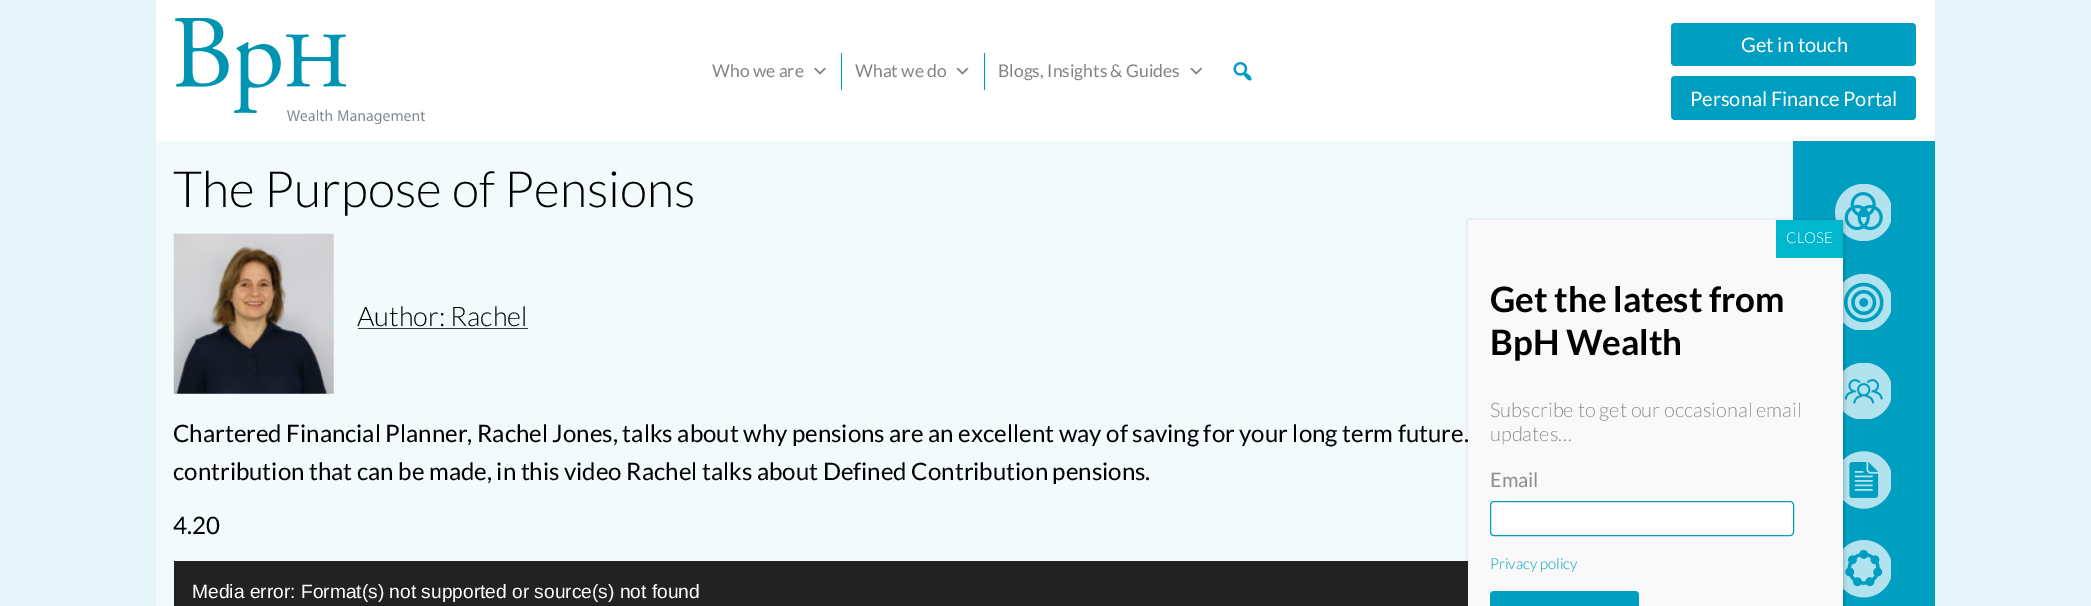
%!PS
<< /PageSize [2091 606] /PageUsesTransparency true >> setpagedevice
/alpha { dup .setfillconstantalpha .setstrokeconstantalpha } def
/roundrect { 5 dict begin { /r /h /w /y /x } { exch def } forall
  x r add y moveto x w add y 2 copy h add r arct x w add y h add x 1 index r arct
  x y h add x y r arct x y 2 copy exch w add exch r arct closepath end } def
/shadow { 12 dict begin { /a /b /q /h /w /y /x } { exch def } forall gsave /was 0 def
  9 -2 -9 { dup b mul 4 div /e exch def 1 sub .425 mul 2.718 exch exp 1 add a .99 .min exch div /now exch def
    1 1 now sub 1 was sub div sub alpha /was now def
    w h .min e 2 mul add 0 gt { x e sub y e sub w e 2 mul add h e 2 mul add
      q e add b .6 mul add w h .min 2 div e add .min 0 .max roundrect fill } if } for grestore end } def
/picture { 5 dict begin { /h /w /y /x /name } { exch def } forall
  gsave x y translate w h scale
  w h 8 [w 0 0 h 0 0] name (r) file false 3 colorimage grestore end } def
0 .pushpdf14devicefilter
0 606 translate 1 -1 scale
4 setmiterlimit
0.898 0.961 0.976 setrgbcolor
0 0 2091 606 rectfill
1 setgray
156 0 1779 141 rectfill
(img1.rgb) 175 18 250 106 picture
/Lato-Regular [17.5 0 0 -17.5 0 0] selectfont
0.514 setgray
712 77 moveto (Who we are) show
(img2.rgb) 814 67 12 8 picture
0 0.624 0.761 setrgbcolor
841 53 1 37 rectfill
0.514 setgray
855 77 moveto (What we do) show
(img3.rgb) 956 67 13 8 picture
0 0.624 0.761 setrgbcolor
984 53 1 37 rectfill
0.514 setgray
998 77 moveto (Blogs, Insights & Guides) show
(img4.rgb) 1190 67 13 8 picture
(img5.rgb) 1233 62 19 19 picture
0 0.624 0.761 setrgbcolor
1671 23 245 43 4 roundrect fill
/Lato-Regular [20 0 0 -20 0 0] selectfont
1 setgray
1741 52 moveto (Get in touch) show
0 0.624 0.761 setrgbcolor
1671 76 245 44 4 roundrect fill
1 setgray
1690 106 moveto (Personal Finance Portal) show
0.949 0.98 0.988 setrgbcolor
156 141 1637 465 rectfill
/Lato-Light [50 0 0 -50 0 0] selectfont
0 setgray
173 207 moveto (The Purpose of Pensions) show
(img6.rgb) 173 233 161 161 picture
/Lato-Light [27 0 0 -27 0 0] selectfont
357 326 moveto (Author: Rachel) show
0.239 0.224 0.22 setrgbcolor
358 328 170 1 rectfill
/Lato-Regular [24 0 0 -24 0 0] selectfont
0 setgray
173 442 moveto (Chartered Financial Planner, Rachel Jones, talks about why pensions are an excellent way of saving for your long term future.) show
173 480 moveto (contribution that can be made, in this video Rachel talks about Defined Contribution pensions.) show
173 534 moveto (4.20) show
0.133 setgray
174 561 1294 45 rectfill
/LiberationSans-Regular [19.2 0 0 -19.2 0 0] selectfont
1 setgray
192 598 moveto (Media error: Format\(s\) not supported or source\(s\) not found) show
0 0.624 0.761 setrgbcolor
1793 141 142 465 rectfill
(img7.rgb) 1835 184 56 57 picture
(img8.rgb) 1843 274 48 56 picture
(img9.rgb) 1843 363 48 56 picture
(img10.rgb) 1843 451 48 58 picture
(img11.rgb) 1843 540 48 58 picture
0.008 setgray
1469 221 375 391 0 2 0.23 shadow
0.976 setgray
1468 220 375 386 rectfill
0 0.718 0.804 setrgbcolor
1776 220 67 38 rectfill
/Lato-Light [15 0 0 -15 0 0] selectfont
1 setgray
1786 243 moveto (CLOSE) show
/Lato-Bold [35 0 0 -35 0 0] selectfont
0 setgray
1490 312 moveto (Get the latest from) show
1490 355 moveto (BpH Wealth) show
/Lato-Light [20 0 0 -20 0 0] selectfont
0.549 setgray
1490 417 moveto (Subscribe to get our occasional email) show
1490 441 moveto (updates…) show
/Lato-Regular [20 0 0 -20 0 0] selectfont
1490 487 moveto (Email) show
1 setgray
1490.5 501.5 303 34 3.5 roundrect gsave fill grestore
0 0.624 0.761 setrgbcolor
stroke
/Lato-Light [15 0 0 -15 0 0] selectfont
1490 569 moveto (Privacy policy) show
1490 591 149 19 4 roundrect fill
.poppdf14devicefilter showpage
